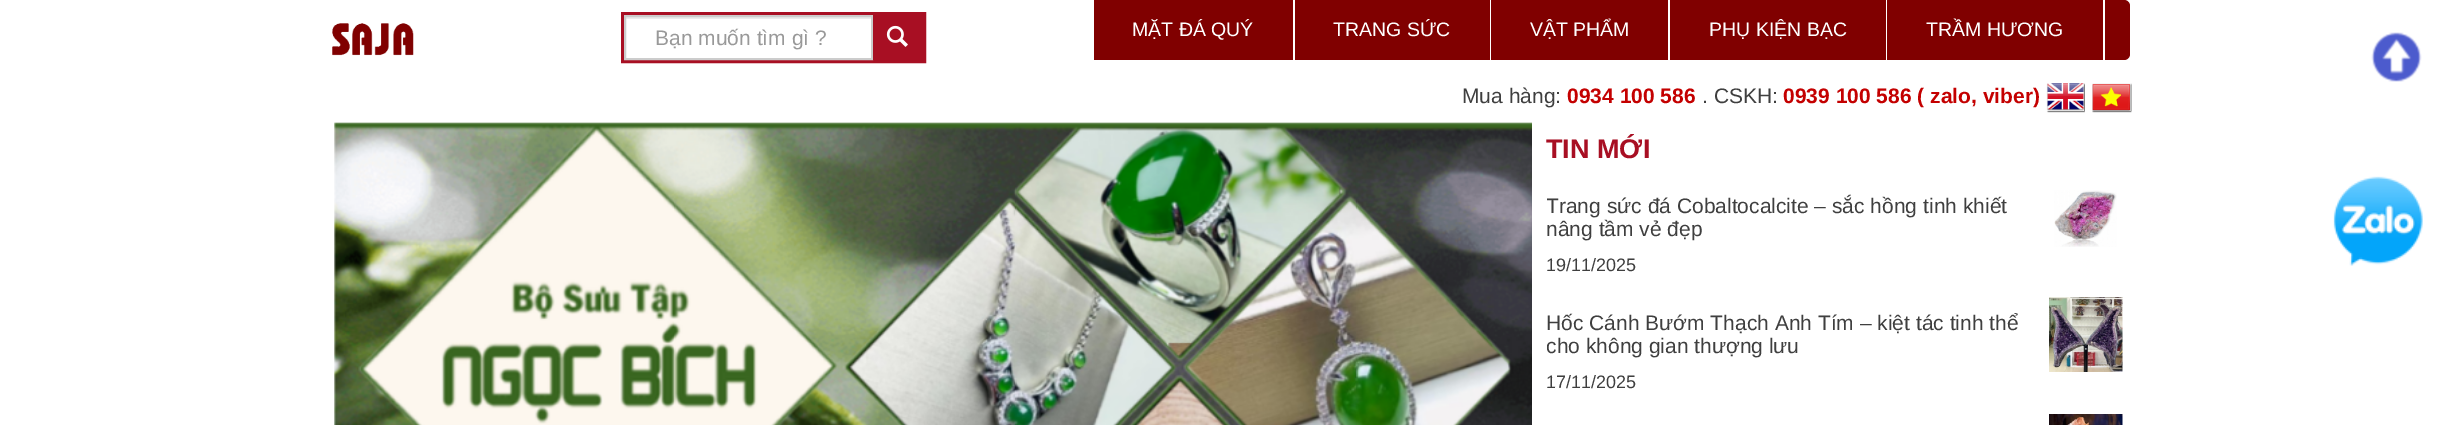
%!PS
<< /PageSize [2461 425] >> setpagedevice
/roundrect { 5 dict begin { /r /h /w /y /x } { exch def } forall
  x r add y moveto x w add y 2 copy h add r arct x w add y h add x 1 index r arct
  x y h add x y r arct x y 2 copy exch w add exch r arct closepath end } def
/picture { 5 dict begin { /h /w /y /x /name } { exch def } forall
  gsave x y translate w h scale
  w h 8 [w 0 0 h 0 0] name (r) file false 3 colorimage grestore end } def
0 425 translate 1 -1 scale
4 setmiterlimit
1 setgray
0 0 2461 425 rectfill
(img1.rgb) 332 23 82 33 picture
0.659 0.059 0.137 setrgbcolor
3 setlinewidth
622.5 13.5 302 48 rectstroke
0.925 setgray
626 17 246 2 rectfill
0.8 setgray
2 setlinewidth
625 16 247 43 rectstroke
/LiberationSans-Regular [21 0 0 -21 0 0] selectfont
0.6 setgray
655 45 moveto (Bạn muốn tìm gì ?) show
0.659 0.059 0.137 setrgbcolor
873 15 50 45 rectfill
(img2.rgb) 886 25 22 22 picture
0.502 0 0 setrgbcolor
1094 0 1036 60 6 roundrect fill
1 setgray
1293 0 2 60 rectfill
0.502 0 0 setrgbcolor
1094 0 6 60 rectfill
/LiberationSans-Regular [19.5 0 0 -19.5 0 0] selectfont
1 setgray
1132 36 moveto (MẶT ĐÁ QUÝ) show
1490 0 1 60 rectfill
1333 36 moveto (TRANG SỨC) show
1668 0 2 60 rectfill
1530 36 moveto (VẬT PHẨM) show
1886 0 1 60 rectfill
1709 36 moveto (PHỤ KIỆN BẠC) show
2103 0 2 60 rectfill
1926 36 moveto (TRẦM HƯƠNG) show
(img3.rgb) 2371 32 51 50 picture
/LiberationSans-Regular [21 0 0 -21 0 0] selectfont
0.247 setgray
1462 103 moveto (Mua hàng:) show
/LiberationSans-Bold [21 0 0 -21 0 0] selectfont
0.769 0 0 setrgbcolor
1567 103 moveto (0934 100 586) show
/LiberationSans-Regular [21 0 0 -21 0 0] selectfont
0.247 setgray
1702 103 moveto (. CSKH:) show
/LiberationSans-Bold [21 0 0 -21 0 0] selectfont
0.769 0 0 setrgbcolor
1783 103 moveto (0939 100 586 \( zalo, viber\)) show
(img4.rgb) 2046 83 39 30 picture
(img5.rgb) 2092 83 40 30 picture
(img6.rgb) 334 122 1198 303 picture
/LiberationSans-Bold [27 0 0 -27 0 0] selectfont
0.659 0.059 0.137 setrgbcolor
1546 158 moveto (TIN MỚI) show
gsave
1547 180 585 111 rectclip
/LiberationSans-Regular [21 0 0 -21 0 0] selectfont
0.247 setgray
1546 213 moveto (Trang sức đá Cobaltocalcite – sắc hồng tinh khiết) show
grestore
/LiberationSans-Regular [21 0 0 -21 0 0] selectfont
0.247 setgray
1546 236 moveto (nâng tầm vẻ đẹp) show
/LiberationSans-Regular [18 0 0 -18 0 0] selectfont
1546 271 moveto (19/11/2025) show
(img7.rgb) 2054 190 63 57 picture
/LiberationSans-Regular [21 0 0 -21 0 0] selectfont
1546 330 moveto (Hốc Cánh Bướm Thạch Anh Tím – kiệt tác tinh thể) show
gsave
1547 297 585 111 rectclip
1546 353 moveto (cho không gian thượng lưu) show
grestore
/LiberationSans-Regular [18 0 0 -18 0 0] selectfont
1546 388 moveto (17/11/2025) show
(img8.rgb) 2049 297 74 75 picture
(img9.rgb) 2049 414 74 11 picture
(img10.rgb) 2333 176 90 90 picture
showpage
